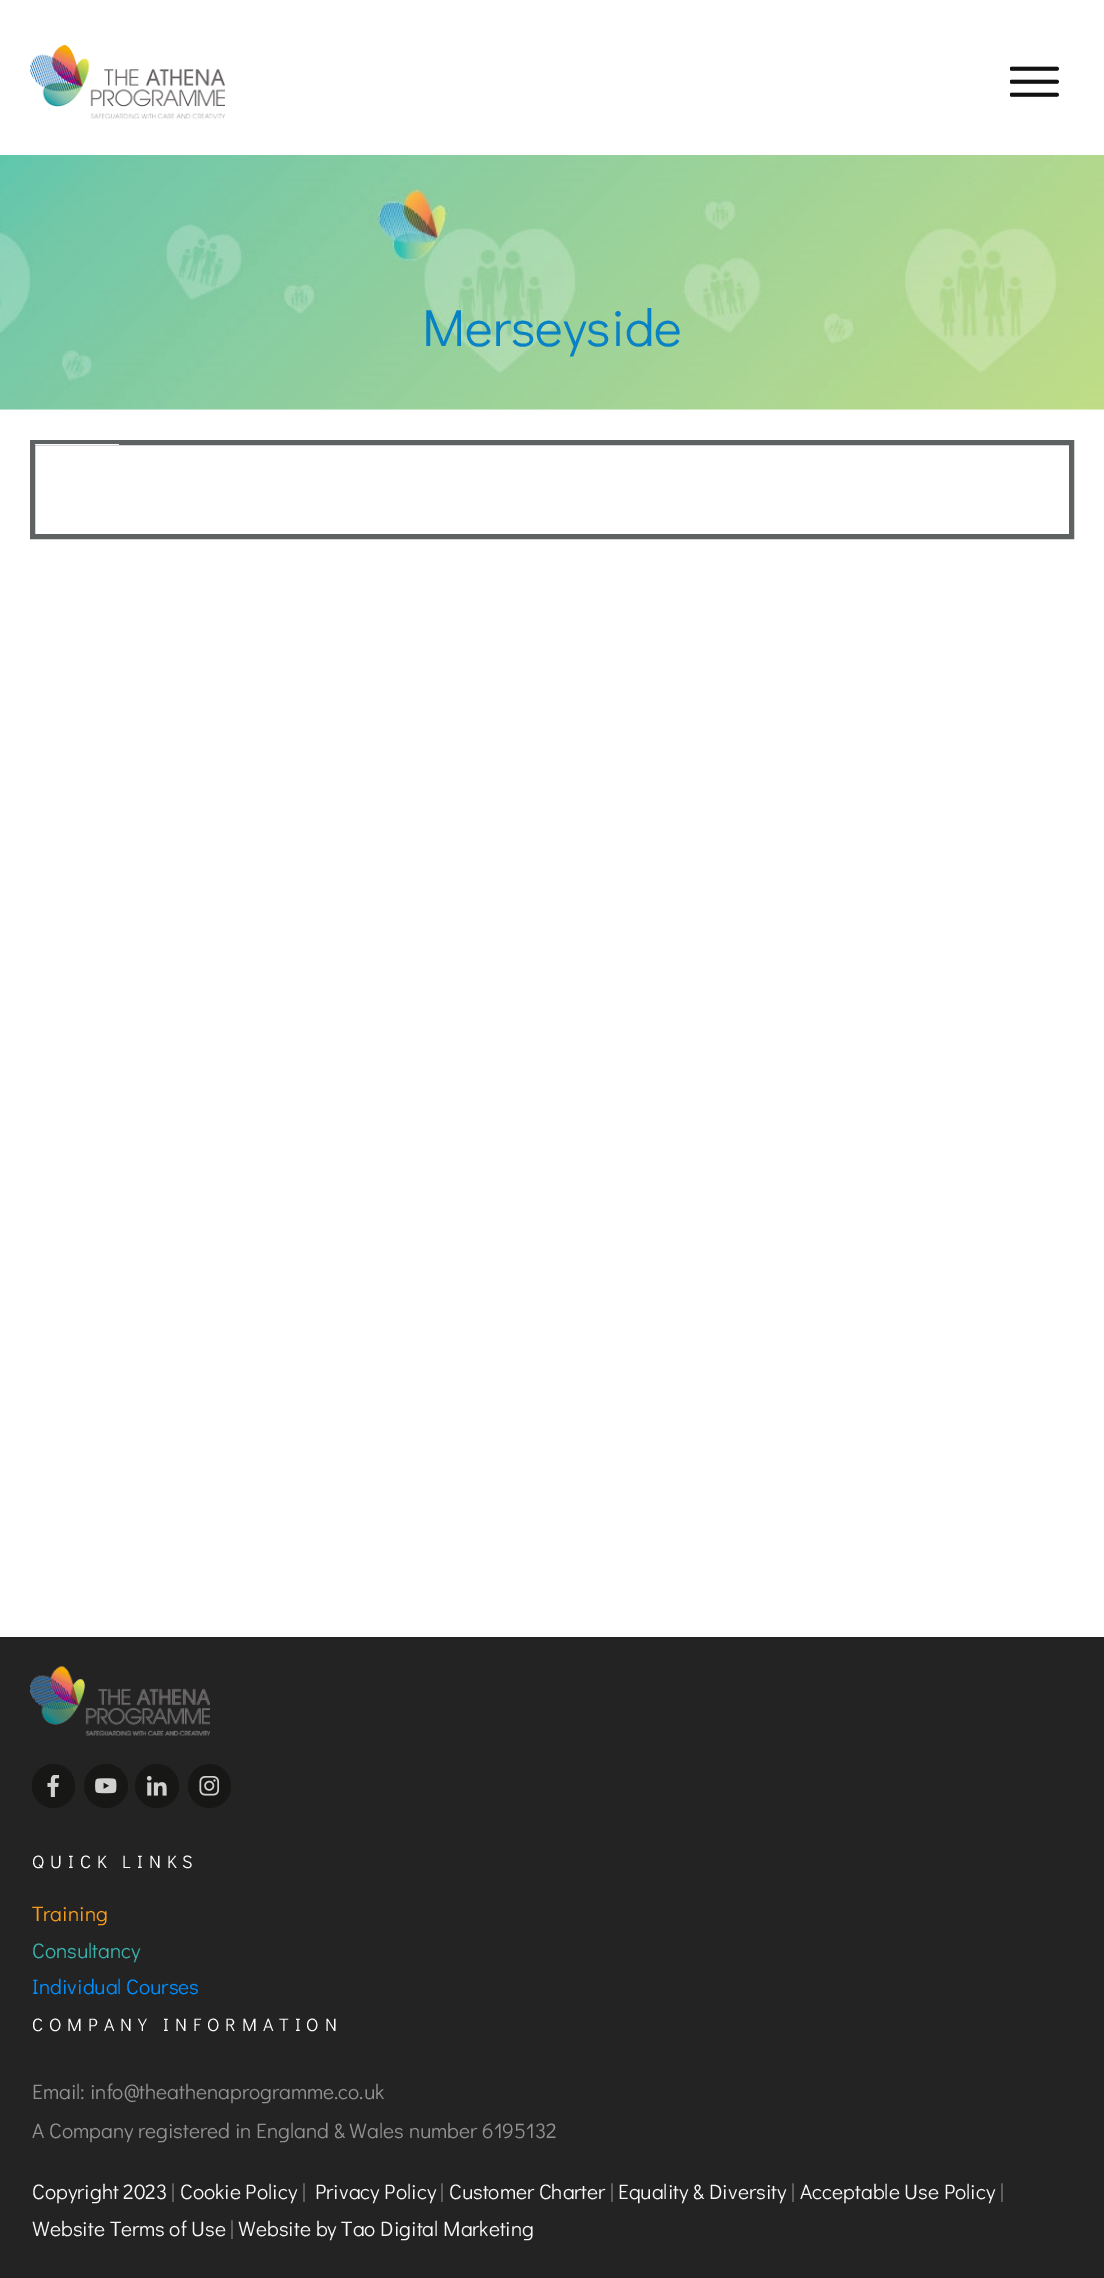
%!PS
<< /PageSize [1104 2278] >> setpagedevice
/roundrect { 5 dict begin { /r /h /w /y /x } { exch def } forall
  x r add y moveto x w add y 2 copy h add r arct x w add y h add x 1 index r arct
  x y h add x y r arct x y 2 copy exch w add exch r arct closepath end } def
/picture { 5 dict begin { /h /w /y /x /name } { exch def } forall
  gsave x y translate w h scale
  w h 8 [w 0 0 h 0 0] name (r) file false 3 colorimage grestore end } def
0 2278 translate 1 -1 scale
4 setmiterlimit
1 setgray
0 0 1104 2278 rectfill
(img1.rgb) 30 45 195 74 picture
(img2.rgb) 1010 66 49 31 picture
(img3.rgb) 0 155 1104 255 picture
/DidactGothic-Regular [52.5 0 0 -52.5 0 0] selectfont
0.031 0.51 0.769 setrgbcolor
422 346 moveto (Merseyside) show
0.373 0.384 0.388 setrgbcolor
5 setlinewidth
32.5 442.5 1039 94 rectstroke
1 setgray
35 444 84 1 rectfill
0.137 setgray
0 1637 1104 641 rectfill
(img4.rgb) 30 1666 180 70 picture
0.09 0.09 0.086 setrgbcolor
32 1764 43 44 21.5 roundrect fill
(img5.rgb) 47 1775 13 22 picture
newpath 106 1786 22 0 360 arc closepath fill
(img6.rgb) 95 1778 22 16 picture
newpath 157 1786 22 0 360 arc closepath fill
(img7.rgb) 146 1775 21 21 picture
188 1764 43 44 21.5 roundrect fill
(img8.rgb) 199 1776 21 20 picture
/DidactGothic-Regular [18 0 0 -18 0 0] selectfont
1 setgray
32 1868 moveto 6 0 (QUICK LINKS) ashow
/DidactGothic-Regular [21 0 0 -21 0 0] selectfont
0.973 0.608 0.114 setrgbcolor
32 1921 moveto (Training) show
0.224 0.698 0.671 setrgbcolor
32 1958 moveto (Consultancy) show
0 0.561 1 setrgbcolor
32 1994 moveto (Individual Courses) show
/DidactGothic-Regular [18 0 0 -18 0 0] selectfont
1 setgray
32 2031 moveto 6 0 (COMPANY INFORMATION) ashow
/DidactGothic-Regular [21 0 0 -21 0 0] selectfont
0.569 setgray
32 2099 moveto (Email: info@theathenaprogramme.co.uk) show
32 2138 moveto (A Company registered in England & Wales number 6195132) show
0.973 setgray
32 2199 moveto (Copyright 2023) show
0.569 setgray
171 2199 moveto (|) show
0.973 setgray
180 2199 moveto (Cookie Policy) show
0.569 setgray
302 2199 moveto (|) show
0.973 setgray
315 2199 moveto (Privacy Policy) show
0.569 setgray
440 2199 moveto (|) show
0.973 setgray
449 2199 moveto (Customer Charter) show
0.569 setgray
610 2199 moveto (|) show
0.973 setgray
618 2199 moveto (Equality & Diversity) show
0.569 setgray
791 2199 moveto (|) show
0.973 setgray
800 2199 moveto (Acceptable Use Policy) show
0.569 setgray
1000 2199 moveto (|) show
0.973 setgray
32 2236 moveto (Website Terms of Use) show
0.569 setgray
230 2236 moveto (|) show
0.973 setgray
238 2236 moveto (Website by Tao Digital Marketing) show
showpage
